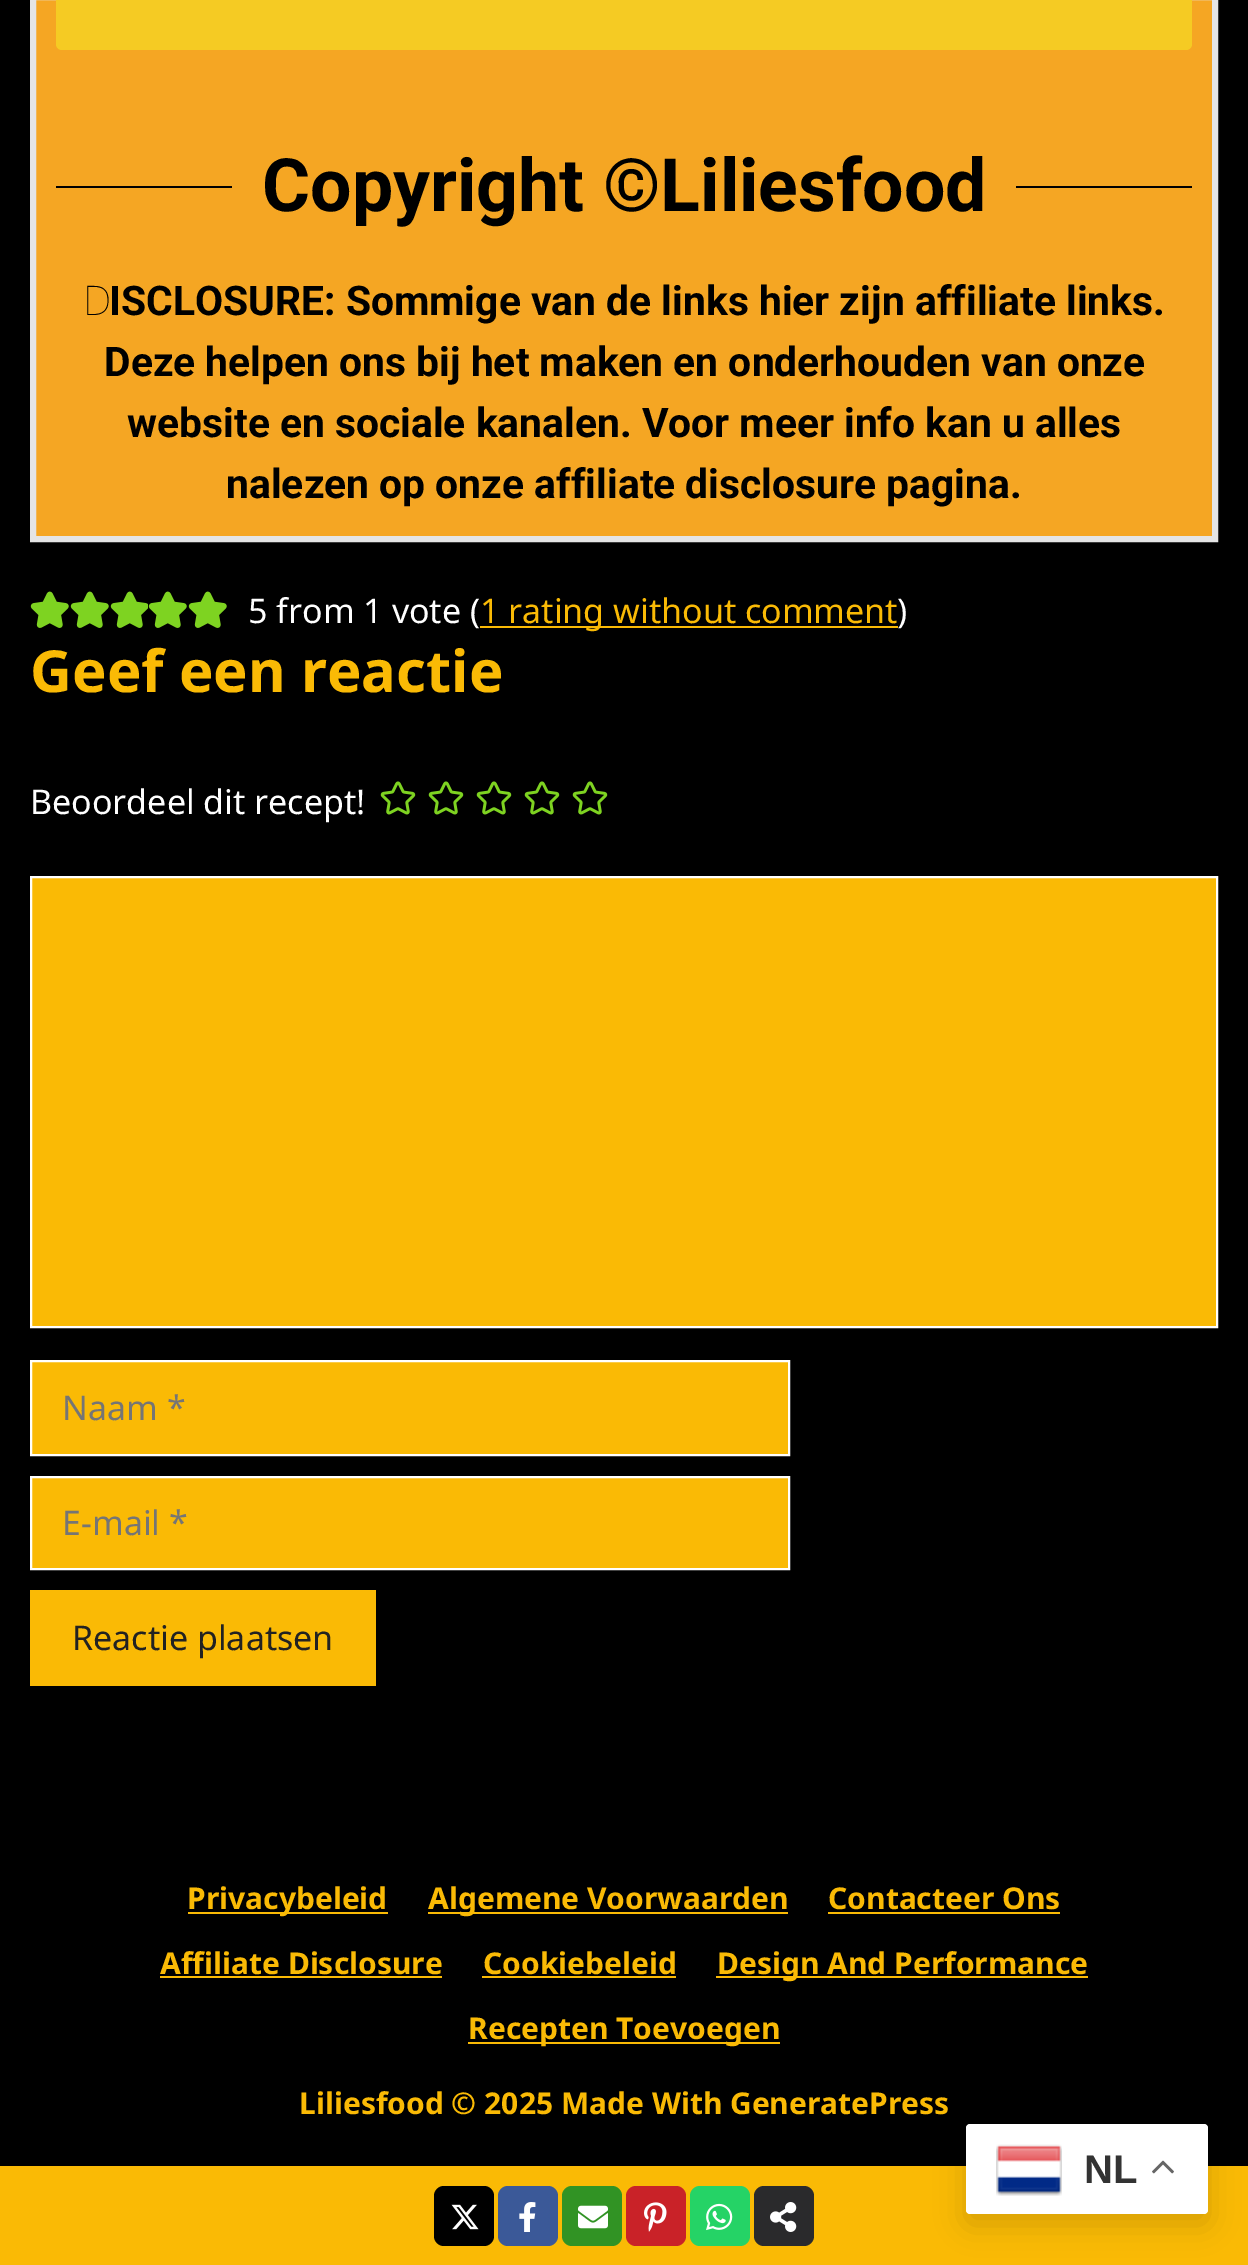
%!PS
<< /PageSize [1248 2265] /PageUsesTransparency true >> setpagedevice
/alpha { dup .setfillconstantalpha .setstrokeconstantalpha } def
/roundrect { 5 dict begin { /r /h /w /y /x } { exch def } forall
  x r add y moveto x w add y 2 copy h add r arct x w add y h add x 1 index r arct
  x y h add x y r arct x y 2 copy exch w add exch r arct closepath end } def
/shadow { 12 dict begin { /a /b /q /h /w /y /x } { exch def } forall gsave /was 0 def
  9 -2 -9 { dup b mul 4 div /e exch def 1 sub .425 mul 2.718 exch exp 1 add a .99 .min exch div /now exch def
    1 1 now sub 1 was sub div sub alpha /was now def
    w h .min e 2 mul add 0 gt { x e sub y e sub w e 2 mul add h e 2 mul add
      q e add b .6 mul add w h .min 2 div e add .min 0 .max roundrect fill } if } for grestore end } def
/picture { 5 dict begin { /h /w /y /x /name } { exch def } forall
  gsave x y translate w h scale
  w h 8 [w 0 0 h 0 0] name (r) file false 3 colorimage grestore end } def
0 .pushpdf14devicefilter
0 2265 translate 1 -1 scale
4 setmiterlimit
0 setgray
0 0 1248 2265 rectfill
0.961 0.651 0.137 setrgbcolor
newpath 33 -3 moveto 1215 -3 lineto 1215 539 lineto 33 539 lineto closepath gsave fill grestore
0.898 setgray
6 setlinewidth
stroke
0.961 0.796 0.137 setrgbcolor
56 -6 1136 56 6 roundrect fill
0 setgray
56 186 176 2 rectfill
/Roboto-Bold [73.5 0 0 -73.5 0 0] selectfont
262 211 moveto (Copyright ©Liliesfood) show
1016 186 176 2 rectfill
/NotoSans-Thin [40.8 0 0 -40.8 0 0] selectfont
83 315 moveto (D) show
/Roboto-Bold [40.8 0 0 -40.8 0 0] selectfont
109 315 moveto (ISCLOSURE: Sommige van de links hier zijn affiliate links.) show
104 376 moveto (Deze helpen ons bij het maken en onderhouden van onze) show
127 437 moveto (website en sociale kanalen. Voor meer info kan u alles) show
226 498 moveto (nalezen op onze affiliate disclosure pagina.) show
(img1.rgb) 30 591 39 37 picture
(img1.rgb) 70 591 39 37 picture
(img2.rgb) 110 591 38 37 picture
(img1.rgb) 148 591 39 37 picture
(img1.rgb) 188 591 39 37 picture
/NotoSans-Regular [34 0 0 -34 0 0] selectfont
1 setgray
248 623 moveto (5 from 1 vote \() show
0.98 0.729 0.02 setrgbcolor
480 626 418 2 rectfill
480 623 moveto (1 rating without comment) show
1 setgray
897 623 moveto (\)) show
/NotoSans-Bold [58 0 0 -58 0 0] selectfont
0.98 0.729 0.02 setrgbcolor
30 692 moveto (Geef een reactie) show
/NotoSans-Regular [34 0 0 -34 0 0] selectfont
1 setgray
30 814 moveto (Beoordeel dit recept!) show
(img3.rgb) 380 781 228 34 picture
0.98 0.729 0.02 setrgbcolor
newpath 31 877 moveto 1217 877 lineto 1217 1327 lineto 31 1327 lineto closepath gsave fill grestore
1 setgray
2 setlinewidth
stroke
0.98 0.729 0.02 setrgbcolor
newpath 31 1361 moveto 789 1361 lineto 789 1455 lineto 31 1455 lineto closepath gsave fill grestore
1 setgray
stroke
0.459 setgray
62 1420 moveto (Naam *) show
0.98 0.729 0.02 setrgbcolor
newpath 31 1477 moveto 789 1477 lineto 789 1569 lineto 31 1569 lineto closepath gsave fill grestore
1 setgray
stroke
0.459 setgray
62 1535 moveto (E-mail *) show
0.98 0.729 0.02 setrgbcolor
30 1590 346 96 rectfill
0.133 setgray
72 1650 moveto (Reactie plaatsen) show
0.98 0.729 0.02 setrgbcolor
188 1912 200 2 rectfill
/NotoSans-Bold [30 0 0 -30 0 0] selectfont
187 1909 moveto (Privacybeleid) show
428 1912 360 2 rectfill
428 1909 moveto (Algemene Voorwaarden) show
828 1909 moveto (Contacteer Ons) show
828 1912 232 2 rectfill
160 1974 moveto (Affiliate Disclosure) show
160 1976 282 2 rectfill
483 1974 moveto (Cookiebeleid) show
482 1976 194 2 rectfill
716 1976 372 2 rectfill
717 1974 moveto (Design And Performance) show
468 2042 312 2 rectfill
468 2039 moveto (Recepten Toevoegen) show
299 2114 moveto (Liliesfood © 2025 Made With GeneratePress) show
0 2166 1248 99 rectfill
0 setgray
966 2134 242 90 4 15 0.15 shadow
1 setgray
966 2124 242 90 4 roundrect fill
(img4.rgb) 996 2144 66 52 picture
/LiberationSans-Bold [40 0 0 -40 0 0] selectfont
0.2 setgray
1084 2183 moveto (NL) show
(img5.rgb) 1152 2160 22 14 picture
0 setgray
434 2186 60 60 10 roundrect fill
(img6.rgb) 451 2204 28 26 picture
0.231 0.349 0.596 setrgbcolor
498 2186 60 60 10 roundrect fill
(img7.rgb) 519 2202 17 30 picture
0.192 0.576 0.141 setrgbcolor
562 2186 60 60 10 roundrect fill
(img8.rgb) 578 2205 30 24 picture
0.788 0.133 0.157 setrgbcolor
626 2186 60 60 10 roundrect fill
(img9.rgb) 644 2202 23 30 picture
0.145 0.827 0.4 setrgbcolor
690 2186 60 60 10 roundrect fill
(img10.rgb) 706 2203 27 28 picture
0.165 0.165 0.173 setrgbcolor
754 2186 60 60 10 roundrect fill
(img11.rgb) 770 2202 27 30 picture
.poppdf14devicefilter showpage
